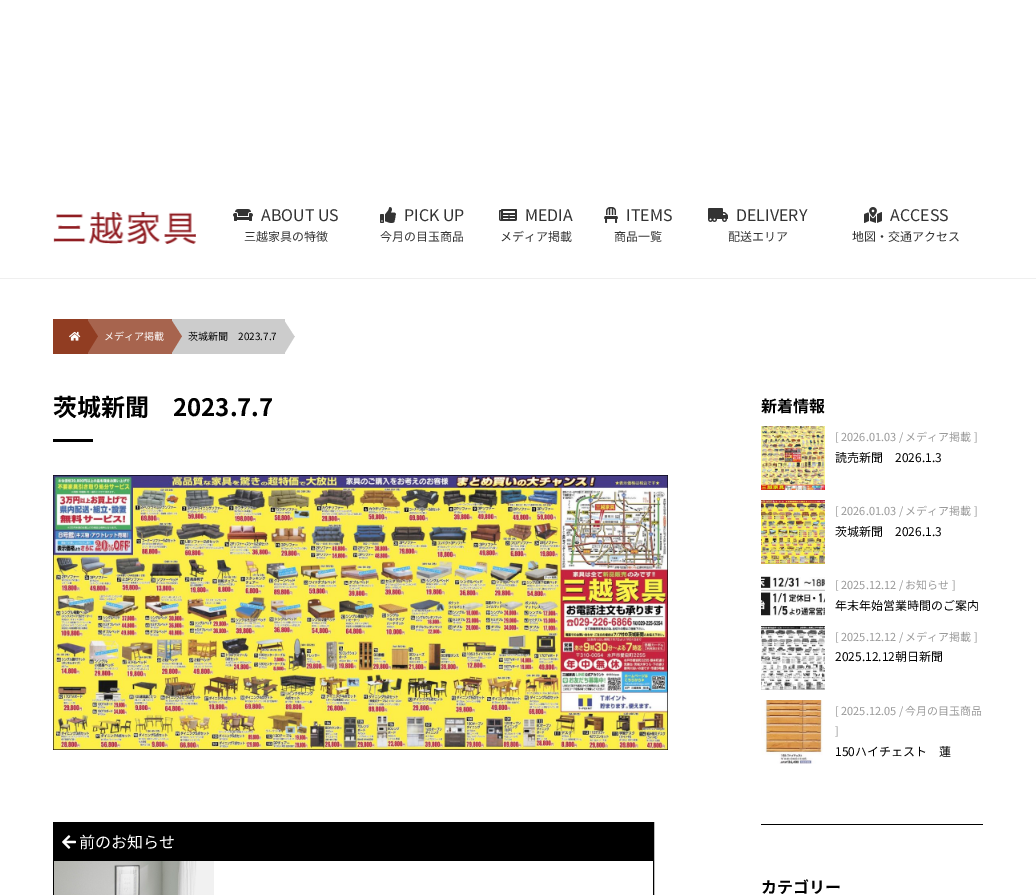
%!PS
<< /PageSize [1036 895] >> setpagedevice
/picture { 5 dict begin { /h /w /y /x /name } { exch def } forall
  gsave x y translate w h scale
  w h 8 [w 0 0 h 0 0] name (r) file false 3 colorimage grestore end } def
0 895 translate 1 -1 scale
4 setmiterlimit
1 setgray
0 0 1036 895 rectfill
0.937 setgray
0 278 1036 1 rectfill
(img1.rgb) 53 212 143 32 picture
(img2.rgb) 233 209 20 12 picture
/NotoSansJP-Regular [16 0 0 -16 0 0] selectfont
0.2 setgray
261 221 moveto (ABOUT US) show
/NotoSansJP-Regular [12 0 0 -12 0 0] selectfont
244 241 moveto (三越家具の特徴) show
(img3.rgb) 380 207 16 16 picture
/NotoSansJP-Regular [16 0 0 -16 0 0] selectfont
404 221 moveto (PICK UP) show
/NotoSansJP-Regular [12 0 0 -12 0 0] selectfont
380 241 moveto (今月の目玉商品) show
(img4.rgb) 499 209 18 12 picture
/NotoSansJP-Regular [16 0 0 -16 0 0] selectfont
525 221 moveto (MEDIA) show
/NotoSansJP-Regular [12 0 0 -12 0 0] selectfont
500 241 moveto (メディア掲載) show
(img5.rgb) 604 207 14 16 picture
/NotoSansJP-Regular [16 0 0 -16 0 0] selectfont
626 221 moveto (ITEMS) show
/NotoSansJP-Regular [12 0 0 -12 0 0] selectfont
614 241 moveto (商品一覧) show
(img6.rgb) 708 208 20 14 picture
/NotoSansJP-Regular [16 0 0 -16 0 0] selectfont
736 221 moveto (DELIVERY) show
/NotoSansJP-Regular [12 0 0 -12 0 0] selectfont
728 241 moveto (配送エリア) show
(img7.rgb) 864 207 18 16 picture
/NotoSansJP-Regular [16 0 0 -16 0 0] selectfont
890 221 moveto (ACCESS) show
/NotoSansJP-Regular [12 0 0 -12 0 0] selectfont
852 241 moveto (地図・交通アクセス) show
0.569 0.239 0.133 setrgbcolor
53 319 35 35 rectfill
(img8.rgb) 69 331 12 10 picture
0.655 0.392 0.306 setrgbcolor
88 319 84 35 rectfill
0.569 0.239 0.133 setrgbcolor
newpath 87 336.5 moveto 98 336.5 lineto 87 319.5 lineto closepath fill
newpath 87 336 moveto 98 336 lineto 87 354 lineto closepath fill
/NotoSansJP-Regular [10 0 0 -10 0 0] selectfont
1 setgray
104 340 moveto (メディア掲載) show
0.8 setgray
172 319 113 35 rectfill
0.655 0.392 0.306 setrgbcolor
newpath 171 336.5 moveto 182 336.5 lineto 171 319.5 lineto closepath fill
newpath 171 336 moveto 182 336 lineto 171 354 lineto closepath fill
0 setgray
188 340 moveto (茨城新聞　2023.7.7) show
0.8 setgray
newpath 283.5 336.5 moveto 294.5 336.5 lineto 283.5 319.5 lineto closepath fill
newpath 284 336 moveto 295 336 lineto 284 354 lineto closepath fill
/NotoSansJP-Bold [24 0 0 -24 0 0] selectfont
0 setgray
53 416 moveto (茨城新聞　2023.7.7) show
53 439 40 3 rectfill
(img9.rgb) 53 475 615 275 picture
53.5 822.5 600 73 rectstroke
54 823 599 38 rectfill
(img10.rgb) 62 835 14 14 picture
/NotoSansJP-Regular [16 0 0 -16 0 0] selectfont
1 setgray
79 848 moveto (前のお知らせ) show
(img11.rgb) 54 861 160 34 picture
0 setgray
761 824 222 1 rectfill
/NotoSansJP-Bold [16 0 0 -16 0 0] selectfont
761 412 moveto (新着情報) show
(img12.rgb) 761 426 64 64 picture
/NotoSansJP-Regular [11 0 0 -11 0 0] selectfont
0.6 setgray
835 441 moveto ([ 2026.01.03 / メディア掲載 ]) show
/NotoSansJP-Regular [12 0 0 -12 0 0] selectfont
0 setgray
835 462 moveto (読売新聞　2026.1.3) show
(img13.rgb) 761 500 64 64 picture
/NotoSansJP-Regular [11 0 0 -11 0 0] selectfont
0.6 setgray
835 515 moveto ([ 2026.01.03 / メディア掲載 ]) show
/NotoSansJP-Regular [12 0 0 -12 0 0] selectfont
0 setgray
835 536 moveto (茨城新聞　2026.1.3) show
(img14.rgb) 761 576 64 40 picture
/NotoSansJP-Regular [11 0 0 -11 0 0] selectfont
0.6 setgray
835 589 moveto ([ 2025.12.12 / お知らせ ]) show
/NotoSansJP-Regular [12 0 0 -12 0 0] selectfont
0 setgray
835 610 moveto (年末年始営業時間のご案内) show
(img15.rgb) 761 626 64 64 picture
/NotoSansJP-Regular [11 0 0 -11 0 0] selectfont
0.6 setgray
835 641 moveto ([ 2025.12.12 / メディア掲載 ]) show
/NotoSansJP-Regular [12 0 0 -12 0 0] selectfont
0 setgray
835 661 moveto (2025.12.12朝日新聞) show
(img16.rgb) 761 700 62 64 picture
/NotoSansJP-Regular [11 0 0 -11 0 0] selectfont
0.6 setgray
835 715 moveto ([ 2025.12.05 / 今月の目玉商品) show
835 735 moveto (]) show
/NotoSansJP-Regular [12 0 0 -12 0 0] selectfont
0 setgray
835 756 moveto (150ハイチェスト　蓮) show
/NotoSansJP-Bold [16 0 0 -16 0 0] selectfont
761 893 moveto (カテゴリー) show
showpage
